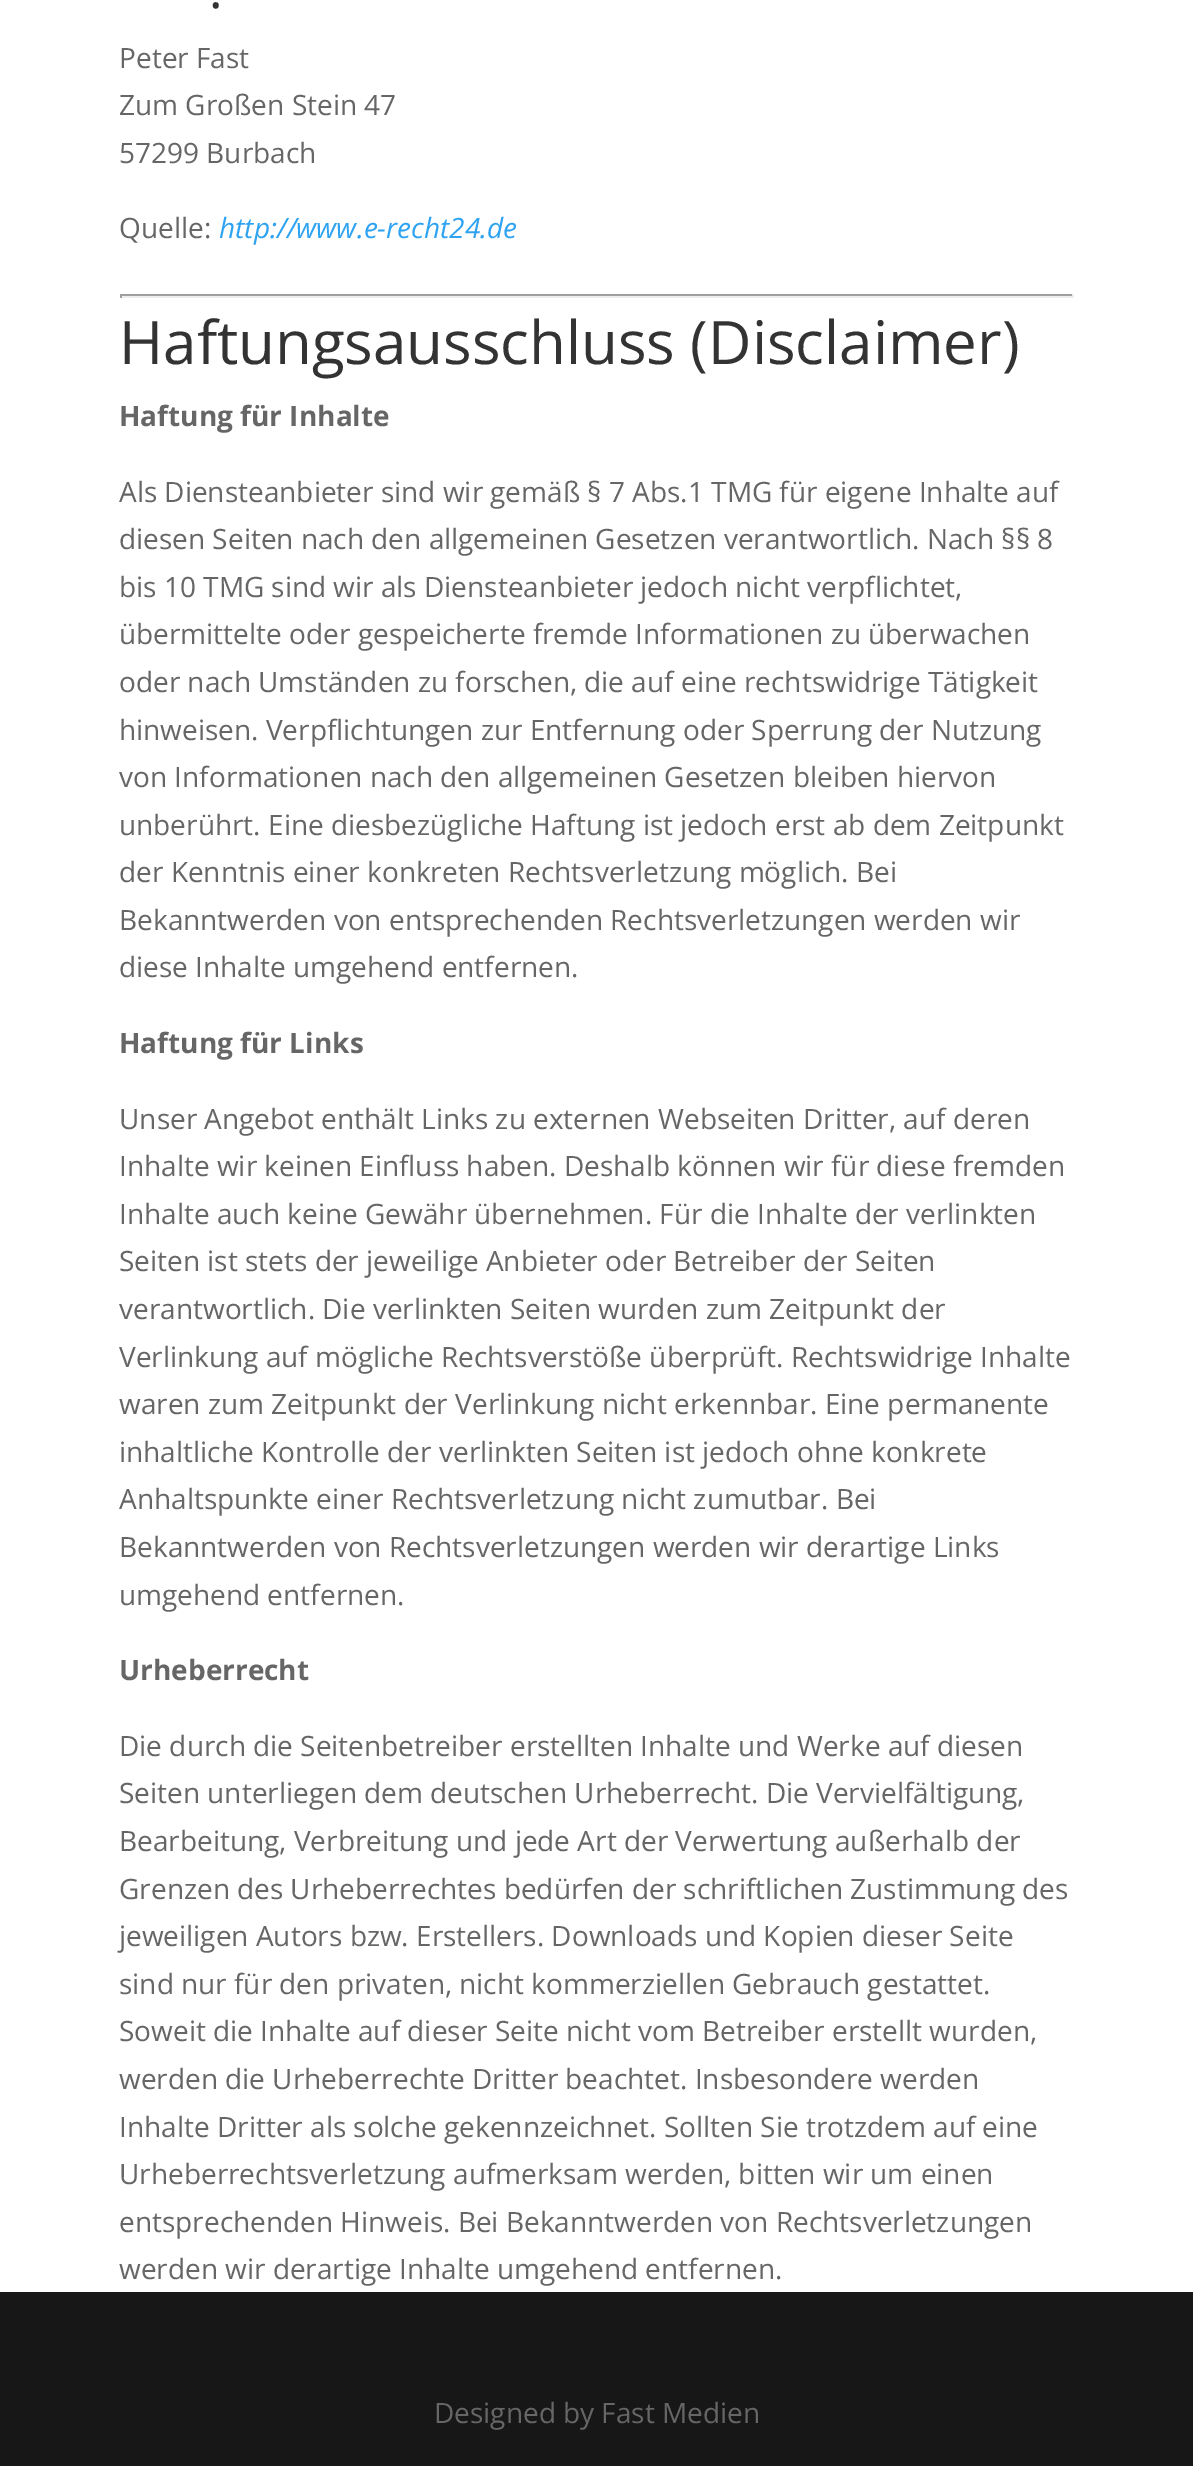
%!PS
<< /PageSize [1193 2466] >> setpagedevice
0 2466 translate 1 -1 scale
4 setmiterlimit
1 setgray
0 0 1193 2466 rectfill
/OpenSans-Regular [52 0 0 -52 0 0] selectfont
0.2 setgray
209 8 moveto (.) show
/OpenSans-Regular [28 0 0 -28 0 0] selectfont
0.4 setgray
119 68 moveto (Peter Fast) show
119 115 moveto (Zum Großen Stein 47) show
119 163 moveto (57299 Burbach) show
119 238 moveto (Quelle:) show
/OpenSans-Italic [28 0 0 -28 0 0] selectfont
0.18 0.639 0.949 setrgbcolor
219 238 moveto (http://www.e-recht24.de) show
0.624 setgray
120 294 954 2 rectfill
0.933 setgray
1072 294 2 4 rectfill
120 296 954 2 rectfill
0.624 setgray
120 294 2 4 rectfill
/OpenSans-Regular [60 0 0 -60 0 0] selectfont
0.2 setgray
119 364 moveto (Haftungsausschluss \(Disclaimer\)) show
/OpenSans-Bold [28 0 0 -28 0 0] selectfont
0.4 setgray
119 426 moveto (Haftung für Inhalte) show
/OpenSans-Regular [28 0 0 -28 0 0] selectfont
119 502 moveto (Als Diensteanbieter sind wir gemäß § 7 Abs.1 TMG für eigene Inhalte auf) show
119 549 moveto (diesen Seiten nach den allgemeinen Gesetzen verantwortlich. Nach §§ 8) show
119 597 moveto (bis 10 TMG sind wir als Diensteanbieter jedoch nicht verpflichtet,) show
119 644 moveto (übermittelte oder gespeicherte fremde Informationen zu überwachen) show
119 692 moveto (oder nach Umständen zu forschen, die auf eine rechtswidrige Tätigkeit) show
119 740 moveto (hinweisen. Verpflichtungen zur Entfernung oder Sperrung der Nutzung) show
119 787 moveto (von Informationen nach den allgemeinen Gesetzen bleiben hiervon) show
119 835 moveto (unberührt. Eine diesbezügliche Haftung ist jedoch erst ab dem Zeitpunkt) show
119 882 moveto (der Kenntnis einer konkreten Rechtsverletzung möglich. Bei) show
119 930 moveto (Bekanntwerden von entsprechenden Rechtsverletzungen werden wir) show
119 977 moveto (diese Inhalte umgehend entfernen.) show
/OpenSans-Bold [28 0 0 -28 0 0] selectfont
119 1053 moveto (Haftung für Links) show
/OpenSans-Regular [28 0 0 -28 0 0] selectfont
119 1129 moveto (Unser Angebot enthält Links zu externen Webseiten Dritter, auf deren) show
119 1176 moveto (Inhalte wir keinen Einfluss haben. Deshalb können wir für diese fremden) show
119 1224 moveto (Inhalte auch keine Gewähr übernehmen. Für die Inhalte der verlinkten) show
119 1271 moveto (Seiten ist stets der jeweilige Anbieter oder Betreiber der Seiten) show
119 1319 moveto (verantwortlich. Die verlinkten Seiten wurden zum Zeitpunkt der) show
119 1367 moveto (Verlinkung auf mögliche Rechtsverstöße überprüft. Rechtswidrige Inhalte) show
119 1414 moveto (waren zum Zeitpunkt der Verlinkung nicht erkennbar. Eine permanente) show
119 1462 moveto (inhaltliche Kontrolle der verlinkten Seiten ist jedoch ohne konkrete) show
119 1509 moveto (Anhaltspunkte einer Rechtsverletzung nicht zumutbar. Bei) show
119 1557 moveto (Bekanntwerden von Rechtsverletzungen werden wir derartige Links) show
119 1605 moveto (umgehend entfernen.) show
/OpenSans-Bold [28 0 0 -28 0 0] selectfont
119 1680 moveto (Urheberrecht) show
/OpenSans-Regular [28 0 0 -28 0 0] selectfont
119 1756 moveto (Die durch die Seitenbetreiber erstellten Inhalte und Werke auf diesen) show
119 1803 moveto (Seiten unterliegen dem deutschen Urheberrecht. Die Vervielfältigung,) show
119 1851 moveto (Bearbeitung, Verbreitung und jede Art der Verwertung außerhalb der) show
119 1899 moveto (Grenzen des Urheberrechtes bedürfen der schriftlichen Zustimmung des) show
119 1946 moveto (jeweiligen Autors bzw. Erstellers. Downloads und Kopien dieser Seite) show
119 1994 moveto (sind nur für den privaten, nicht kommerziellen Gebrauch gestattet.) show
119 2041 moveto (Soweit die Inhalte auf dieser Seite nicht vom Betreiber erstellt wurden,) show
119 2089 moveto (werden die Urheberrechte Dritter beachtet. Insbesondere werden) show
119 2137 moveto (Inhalte Dritter als solche gekennzeichnet. Sollten Sie trotzdem auf eine) show
119 2184 moveto (Urheberrechtsverletzung aufmerksam werden, bitten wir um einen) show
119 2232 moveto (entsprechenden Hinweis. Bei Bekanntwerden von Rechtsverletzungen) show
119 2279 moveto (werden wir derartige Inhalte umgehend entfernen.) show
0.09 setgray
0 2292 1193 174 rectfill
0.4 setgray
434 2423 moveto (Designed by Fast Medien) show
showpage
